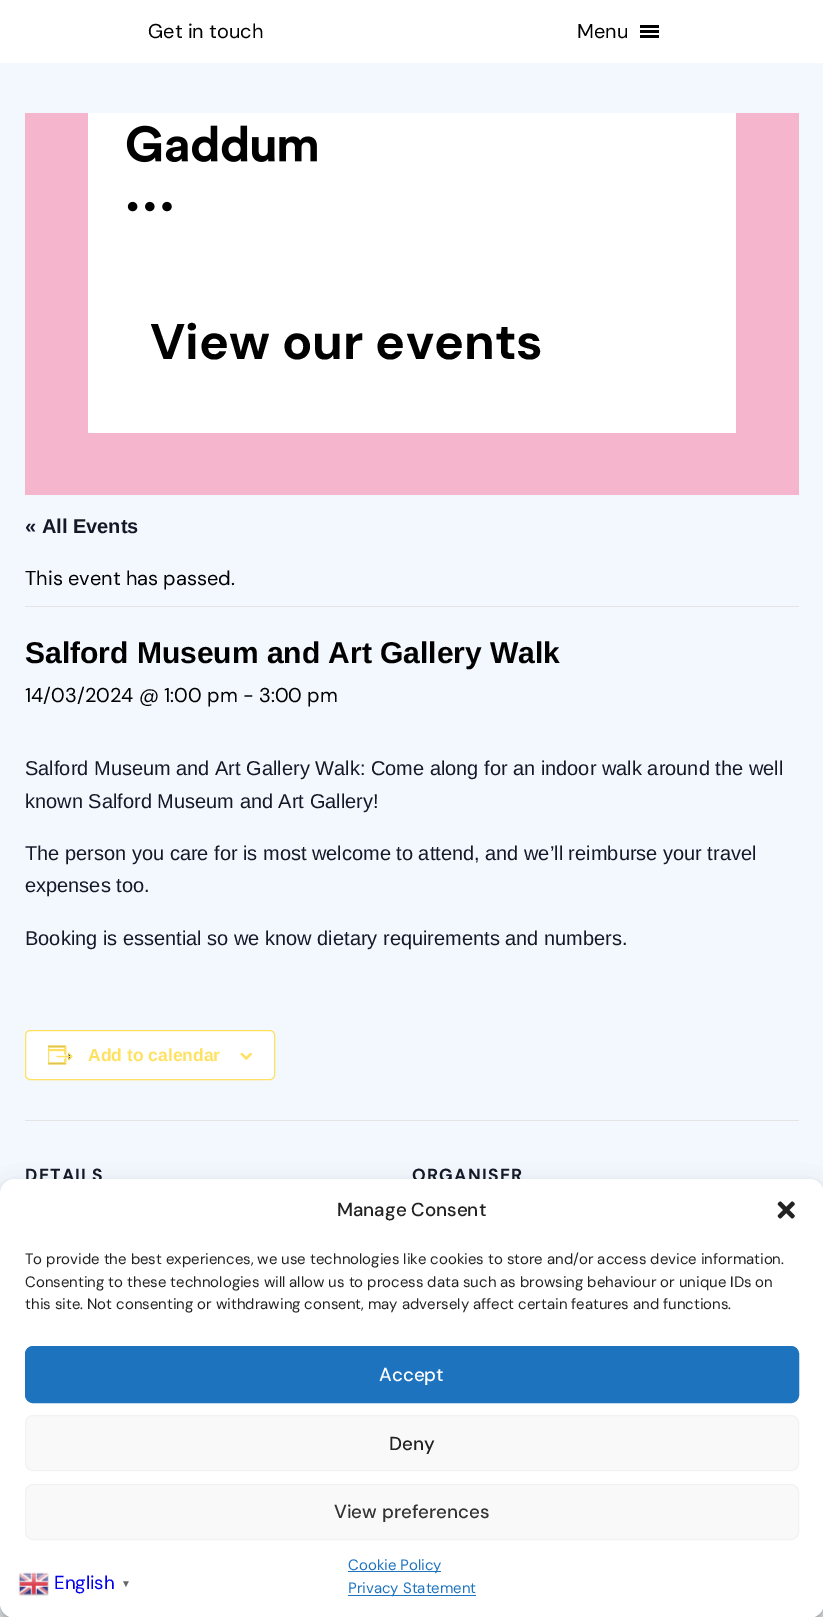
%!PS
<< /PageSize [823 1617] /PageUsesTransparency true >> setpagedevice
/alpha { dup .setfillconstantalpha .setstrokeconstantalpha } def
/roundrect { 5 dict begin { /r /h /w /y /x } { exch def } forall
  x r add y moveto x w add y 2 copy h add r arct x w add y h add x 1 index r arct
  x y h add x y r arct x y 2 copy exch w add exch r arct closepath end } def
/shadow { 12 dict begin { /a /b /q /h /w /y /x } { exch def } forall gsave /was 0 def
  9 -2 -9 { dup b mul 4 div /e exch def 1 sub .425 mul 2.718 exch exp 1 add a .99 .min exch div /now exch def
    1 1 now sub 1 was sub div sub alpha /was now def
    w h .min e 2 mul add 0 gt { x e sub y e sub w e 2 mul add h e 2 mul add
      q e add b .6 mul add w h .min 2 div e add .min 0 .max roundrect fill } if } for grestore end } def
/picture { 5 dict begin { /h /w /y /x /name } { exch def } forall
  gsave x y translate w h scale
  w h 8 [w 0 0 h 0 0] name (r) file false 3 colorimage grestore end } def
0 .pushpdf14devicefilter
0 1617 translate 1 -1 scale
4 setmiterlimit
0.949 0.973 0.996 setrgbcolor
0 0 823 1617 rectfill
1 setgray
0 0 823 63 rectfill
/DMSans-Regular [20 0 0 -20 0 0] selectfont
0 setgray
148 38 moveto (Get in touch) show
577 38 moveto (Menu) show
640 25 19 3 rectfill
640 30 19 3 rectfill
640 35 19 3 rectfill
0.961 0.714 0.804 setrgbcolor
25 113 774 382 rectfill
1 setgray
88 113 648 320 rectfill
(img1.rgb) 126 125 191 87 picture
/DMSans-Bold [50 0 0 -50 0 0] selectfont
0 setgray
150 359 moveto (View our events) show
/LiberationSans-Bold [20 0 0 -20 0 0] selectfont
0.078 0.094 0.153 setrgbcolor
25 533 moveto (« All Events) show
0.894 setgray
25 606 774 1 rectfill
/DMSans-Regular [20 0 0 -20 0 0] selectfont
0 setgray
25 585 moveto (This event has passed.) show
/LiberationSans-Bold [30 0 0 -30 0 0] selectfont
25 663 moveto (Salford Museum and Art Gallery Walk) show
/DMSans-Regular [20 0 0 -20 0 0] selectfont
25 702 moveto (14/03/2024 @ 1:00 pm - 3:00 pm) show
/LiberationSans-Regular [20 0 0 -20 0 0] selectfont
0.078 0.094 0.153 setrgbcolor
25 775 moveto (Salford Museum and Art Gallery Walk: Come along for an indoor walk around the well) show
25 808 moveto (known Salford Museum and Art Gallery!) show
25 860 moveto (The person you care for is most welcome to attend, and we’ll reimburse your travel) show
25 892 moveto (expenses too.) show
25 945 moveto (Booking is essential so we know dietary requirements and numbers.) show
1 setgray
25.5 1030.5 249 49 4.5 roundrect gsave fill grestore
1 0.882 0.38 setrgbcolor
stroke
(img2.rgb) 48 1045 25 20 picture
/LiberationSans-Bold [17.5 0 0 -17.5 0 0] selectfont
88 1061 moveto (Add to calendar) show
(img3.rgb) 240 1053 13 7 picture
0.894 setgray
25 1120 774 1 rectfill
/DMSans-Bold [17.5 0 0 -17.5 0 0] selectfont
0.078 0.094 0.153 setrgbcolor
25 1181 moveto 1.25 0 (DETAILS) ashow
412 1181 moveto 1.25 0 (ORGANISER) ashow
0 setgray
0 1186 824 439 15 4 0.23 shadow
0 1191 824 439 15 12.5 0.19 shadow
1 setgray
0 1179 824 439 15 roundrect fill
/DMSans-Medium [18.75 0 0 -18.75 0 0] selectfont
0.133 setgray
337 1216 moveto (Manage Consent) show
(img4.rgb) 777 1201 18 18 picture
/DMSans-Regular [15 0 0 -15 0 0] selectfont
25 1264 moveto (To provide the best experiences, we use technologies like cookies to store and/or access device information.) show
25 1287 moveto (Consenting to these technologies will allow us to process data such as browsing behaviour or unique IDs on) show
25 1309 moveto (this site. Not consenting or withdrawing consent, may adversely affect certain features and functions.) show
0.118 0.451 0.745 setrgbcolor
25.5 1346.5 773 56 7.5 roundrect gsave fill grestore
stroke
/DMSans-Medium [18.75 0 0 -18.75 0 0] selectfont
1 setgray
379 1381 moveto (Accept) show
0.976 setgray
25.5 1415.5 773 55 7.5 roundrect gsave fill grestore
0.949 setgray
stroke
0.133 setgray
389 1450 moveto (Deny) show
0.976 setgray
25.5 1484.5 773 55 7.5 roundrect gsave fill grestore
0.949 setgray
stroke
0.2 setgray
334 1518 moveto (View preferences) show
0.118 0.451 0.745 setrgbcolor
348 1571 93 1 rectfill
/DMSans-Regular [15 0 0 -15 0 0] selectfont
348 1570 moveto (Cookie Policy) show
348 1595 128 1 rectfill
348 1593 moveto (Privacy Statement) show
(img5.rgb) 18 1572 31 24 picture
/DMSans-Regular [18.75 0 0 -18.75 0 0] selectfont
0 0 0.933 setrgbcolor
54 1589 moveto (English) show
/LiberationSans-Bold [10 0 0 -10 0 0] selectfont
0.4 setgray
121 1587 moveto (▼) show
.poppdf14devicefilter showpage
